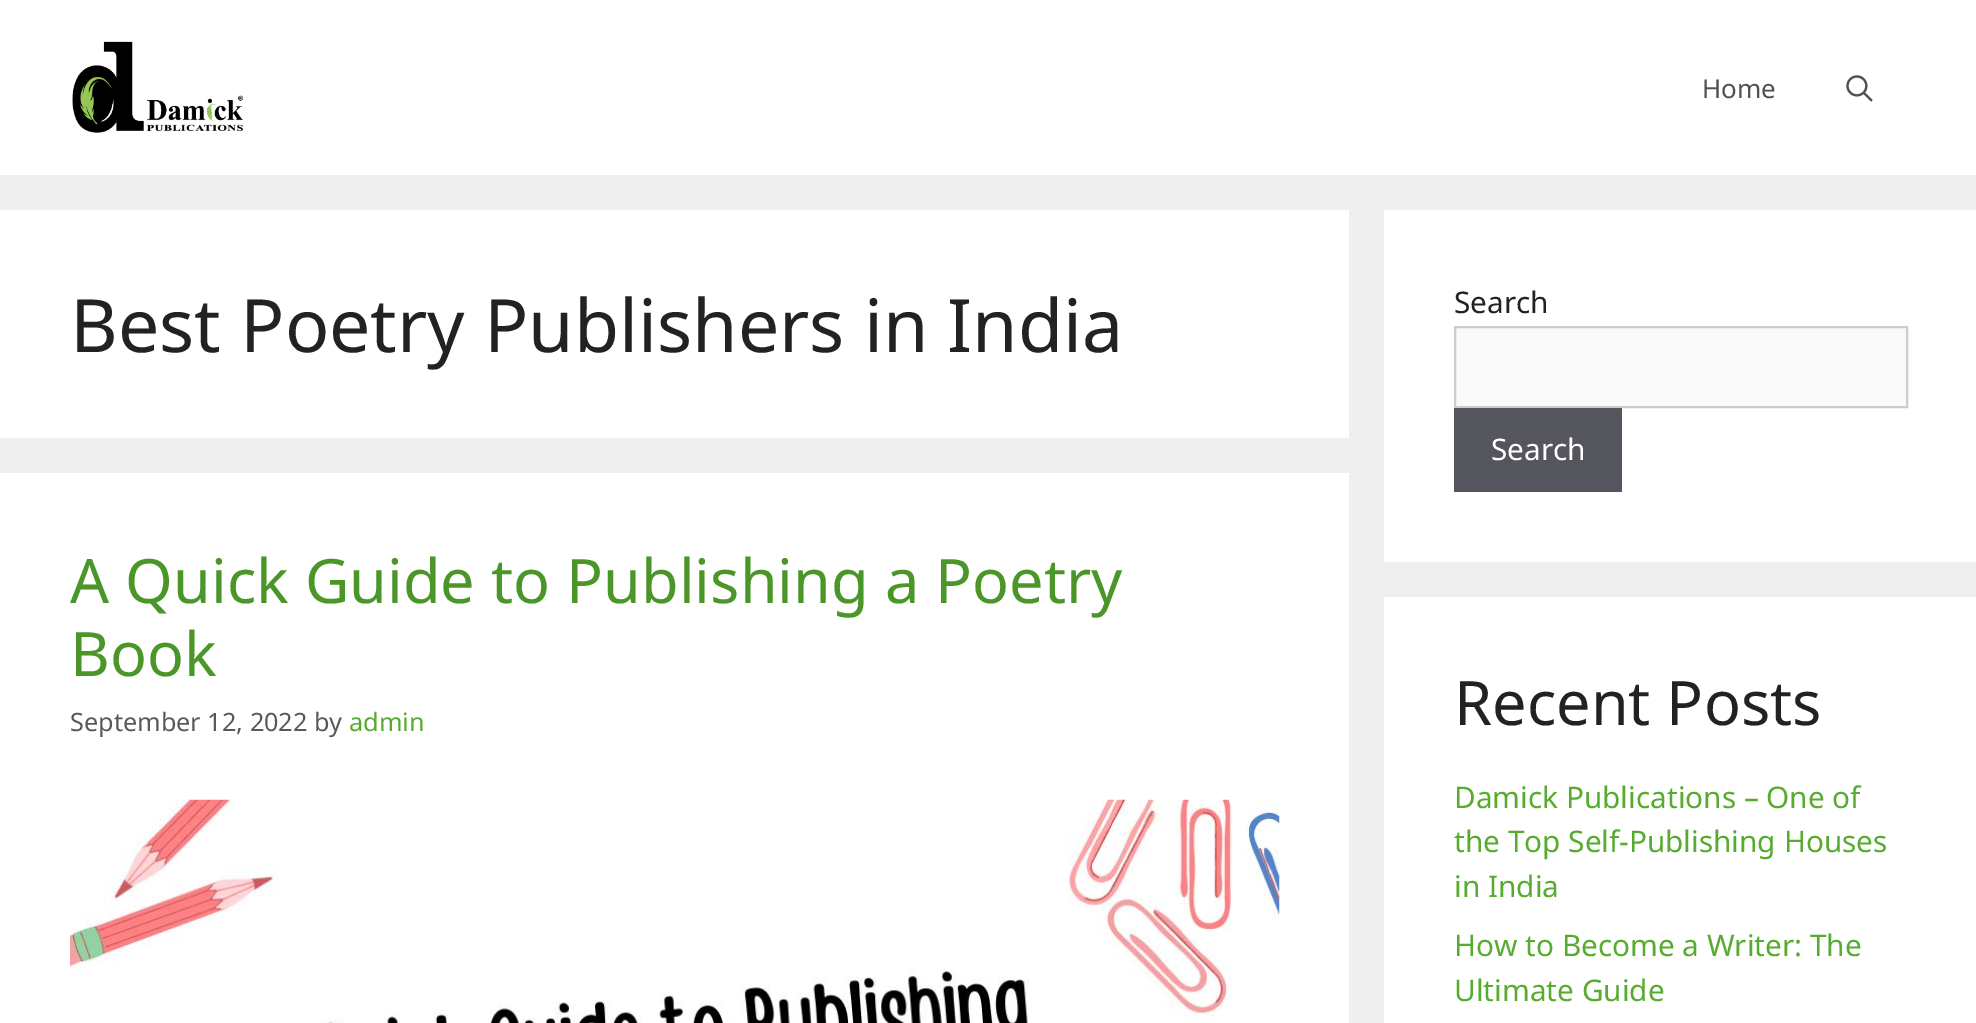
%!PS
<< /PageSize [1976 1023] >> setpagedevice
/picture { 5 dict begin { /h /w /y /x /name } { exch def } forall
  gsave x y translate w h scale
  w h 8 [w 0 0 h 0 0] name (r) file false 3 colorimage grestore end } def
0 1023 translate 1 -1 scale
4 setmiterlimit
0.937 setgray
0 0 1976 1023 rectfill
1 setgray
0 0 1976 175 rectfill
(img1.rgb) 72 41 171 92 picture
/NotoSans-Regular [26 0 0 -26 0 0] selectfont
0.318 setgray
1702 98 moveto (Home) show
(img2.rgb) 1846 75 27 27 picture
1 setgray
0 210 1349 228 rectfill
/NotoSans-Regular [73.5 0 0 -73.5 0 0] selectfont
0.133 setgray
70 352 moveto (Best Poetry Publishers in India) show
1 setgray
0 473 1349 550 rectfill
/NotoSans-Regular [61.25 0 0 -61.25 0 0] selectfont
0.294 0.588 0.157 setrgbcolor
70 603 moveto (A Quick Guide to Publishing a Poetry) show
70 676 moveto (Book) show
/NotoSans-Regular [25.25 0 0 -25.25 0 0] selectfont
0.349 setgray
70 731 moveto (September 12, 2022 by) show
0.341 0.671 0.184 setrgbcolor
349 731 moveto (admin) show
(img3.rgb) 70 799 1210 224 picture
1 setgray
1384 210 592 352 rectfill
/NotoSans-Regular [29.75 0 0 -29.75 0 0] selectfont
0.133 setgray
1454 313 moveto (Search) show
0.98 setgray
newpath 1455 327 moveto 1907 327 lineto 1907 407 lineto 1455 407 lineto closepath gsave fill grestore
0.8 setgray
2 setlinewidth
stroke
0.333 0.333 0.369 setrgbcolor
1454 408 168 84 rectfill
1 setgray
1491 460 moveto (Search) show
1384 597 592 426 rectfill
/NotoSans-Regular [61.25 0 0 -61.25 0 0] selectfont
0.133 setgray
1454 725 moveto (Recent Posts) show
/NotoSans-Regular [29.75 0 0 -29.75 0 0] selectfont
0.341 0.671 0.184 setrgbcolor
1454 808 moveto (Damick Publications – One of) show
1454 852 moveto (the Top Self-Publishing Houses) show
1454 897 moveto (in India) show
1454 956 moveto (How to Become a Writer: The) show
1454 1001 moveto (Ultimate Guide) show
showpage
